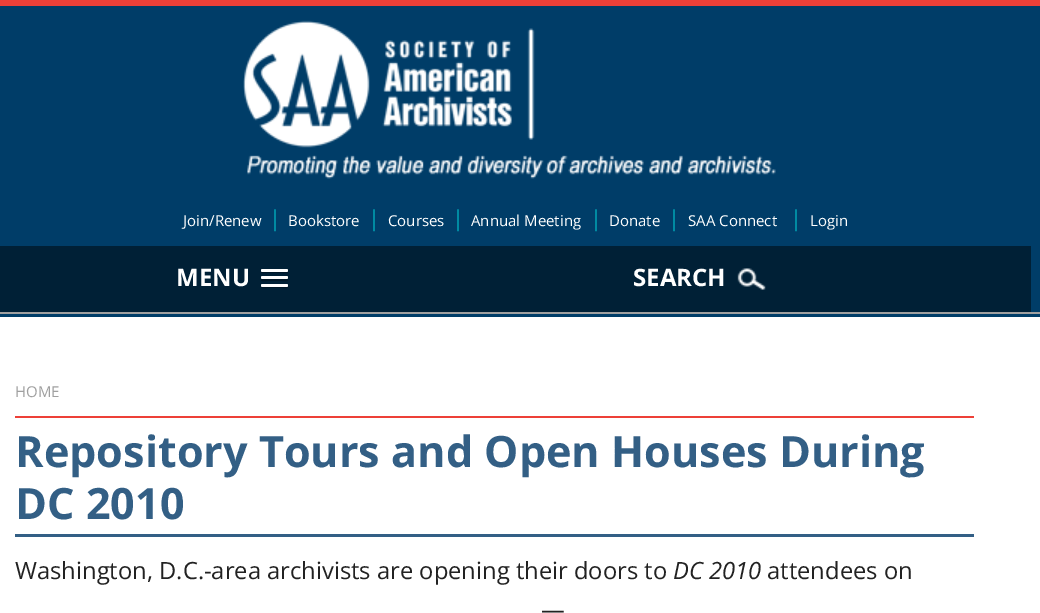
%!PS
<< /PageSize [1040 613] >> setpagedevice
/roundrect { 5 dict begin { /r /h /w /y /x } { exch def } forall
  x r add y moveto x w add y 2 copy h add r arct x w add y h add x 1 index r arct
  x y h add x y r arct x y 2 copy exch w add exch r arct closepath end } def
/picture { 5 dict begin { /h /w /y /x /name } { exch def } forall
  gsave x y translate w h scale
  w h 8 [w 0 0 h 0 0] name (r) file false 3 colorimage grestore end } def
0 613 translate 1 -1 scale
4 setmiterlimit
1 setgray
0 0 1040 613 rectfill
0.925 0.251 0.22 setrgbcolor
0 0 1040 6 rectfill
0 0.239 0.408 setrgbcolor
0 6 1040 306 rectfill
(img1.rgb) 243 20 533 159 picture
/OpenSans-Regular [15 0 0 -15 0 0] selectfont
1 setgray
183 226 moveto (Join/Renew) show
/OpenSans-Regular [22 0 0 -22 0 0] selectfont
0 0.651 0.722 setrgbcolor
269 226 moveto (|) show
/OpenSans-Regular [15 0 0 -15 0 0] selectfont
1 setgray
288 226 moveto (Bookstore) show
/OpenSans-Regular [22 0 0 -22 0 0] selectfont
0 0.651 0.722 setrgbcolor
368 226 moveto (|) show
/OpenSans-Regular [15 0 0 -15 0 0] selectfont
1 setgray
388 226 moveto (Courses) show
/OpenSans-Regular [22 0 0 -22 0 0] selectfont
0 0.651 0.722 setrgbcolor
452 226 moveto (|) show
/OpenSans-Regular [15 0 0 -15 0 0] selectfont
1 setgray
471 226 moveto (Annual Meeting) show
/OpenSans-Regular [22 0 0 -22 0 0] selectfont
0 0.651 0.722 setrgbcolor
590 226 moveto (|) show
/OpenSans-Regular [15 0 0 -15 0 0] selectfont
1 setgray
609 226 moveto (Donate) show
/OpenSans-Regular [22 0 0 -22 0 0] selectfont
0 0.651 0.722 setrgbcolor
668 226 moveto (|) show
/OpenSans-Regular [15 0 0 -15 0 0] selectfont
1 setgray
688 226 moveto (SAA Connect) show
/OpenSans-Regular [22 0 0 -22 0 0] selectfont
0 0.651 0.722 setrgbcolor
790 226 moveto (|) show
/OpenSans-Regular [15 0 0 -15 0 0] selectfont
1 setgray
810 226 moveto (Login) show
0 0.125 0.212 setrgbcolor
0 246 1031 66 rectfill
/OpenSans-Bold [24 0 0 -24 0 0] selectfont
1 setgray
176 286 moveto (MENU) show
0 0.094 0.161 setrgbcolor
newpath 261 271 moveto 259.5 274 266.5 273 266.5 273 curveto 282.5 273 lineto 282.5 273 289.5 274 288 271 curveto 287.5 271 287 271.5 286.5 271.5 curveto 262.5 271.5 lineto 262 271.5 261.5 271 261 271 curveto closepath fill
1 setgray
261 269 27 3 1.5 roundrect fill
0 0.094 0.161 setrgbcolor
newpath 261.5 278.5 moveto 261 280 lineto 261.5 282 266 281 266.5 281 curveto 282.5 281 lineto 283 281 287.5 282 288 280 curveto 287.5 278.5 lineto 286.5 279 lineto 262.5 279 lineto closepath fill
1 setgray
261 276 27 3 1.5 roundrect fill
0 0.094 0.161 setrgbcolor
newpath 261 286 moveto 259.5 289 266.5 288 266.5 288 curveto 282.5 288 lineto 282.5 288 289.5 289 288 286 curveto 287.5 286 287 286.5 286.5 286.5 curveto 262.5 286.5 lineto 262 286.5 261.5 286 261 286 curveto closepath fill
1 setgray
261 284 27 3 1.5 roundrect fill
633 286 moveto (SEARCH) show
(img2.rgb) 737 268 29 22 picture
0.627 setgray
0 312 1040 2 rectfill
0 0.239 0.408 setrgbcolor
0 314 1040 3 rectfill
0.929 0.251 0.22 setrgbcolor
15 416 959 2 rectfill
/OpenSans-Regular [15 0 0 -15 0 0] selectfont
0.627 setgray
15 397 moveto (HOME) show
0.2 0.373 0.522 setrgbcolor
15 534 959 3 rectfill
/OpenSans-Bold [43.2 0 0 -43.2 0 0] selectfont
15 467 moveto (Repository Tours and Open Houses During) show
15 519 moveto (DC 2010) show
/OpenSans-Regular [23.75 0 0 -23.75 0 0] selectfont
0.133 setgray
15 579 moveto (Washington, D.C.-area archivists are opening their doors to) show
/OpenSans-Italic [23.75 0 0 -23.75 0 0] selectfont
673 579 moveto (DC 2010) show
/OpenSans-Regular [23.75 0 0 -23.75 0 0] selectfont
767 579 moveto (attendees on) show
541 618 moveto (—) show
showpage
